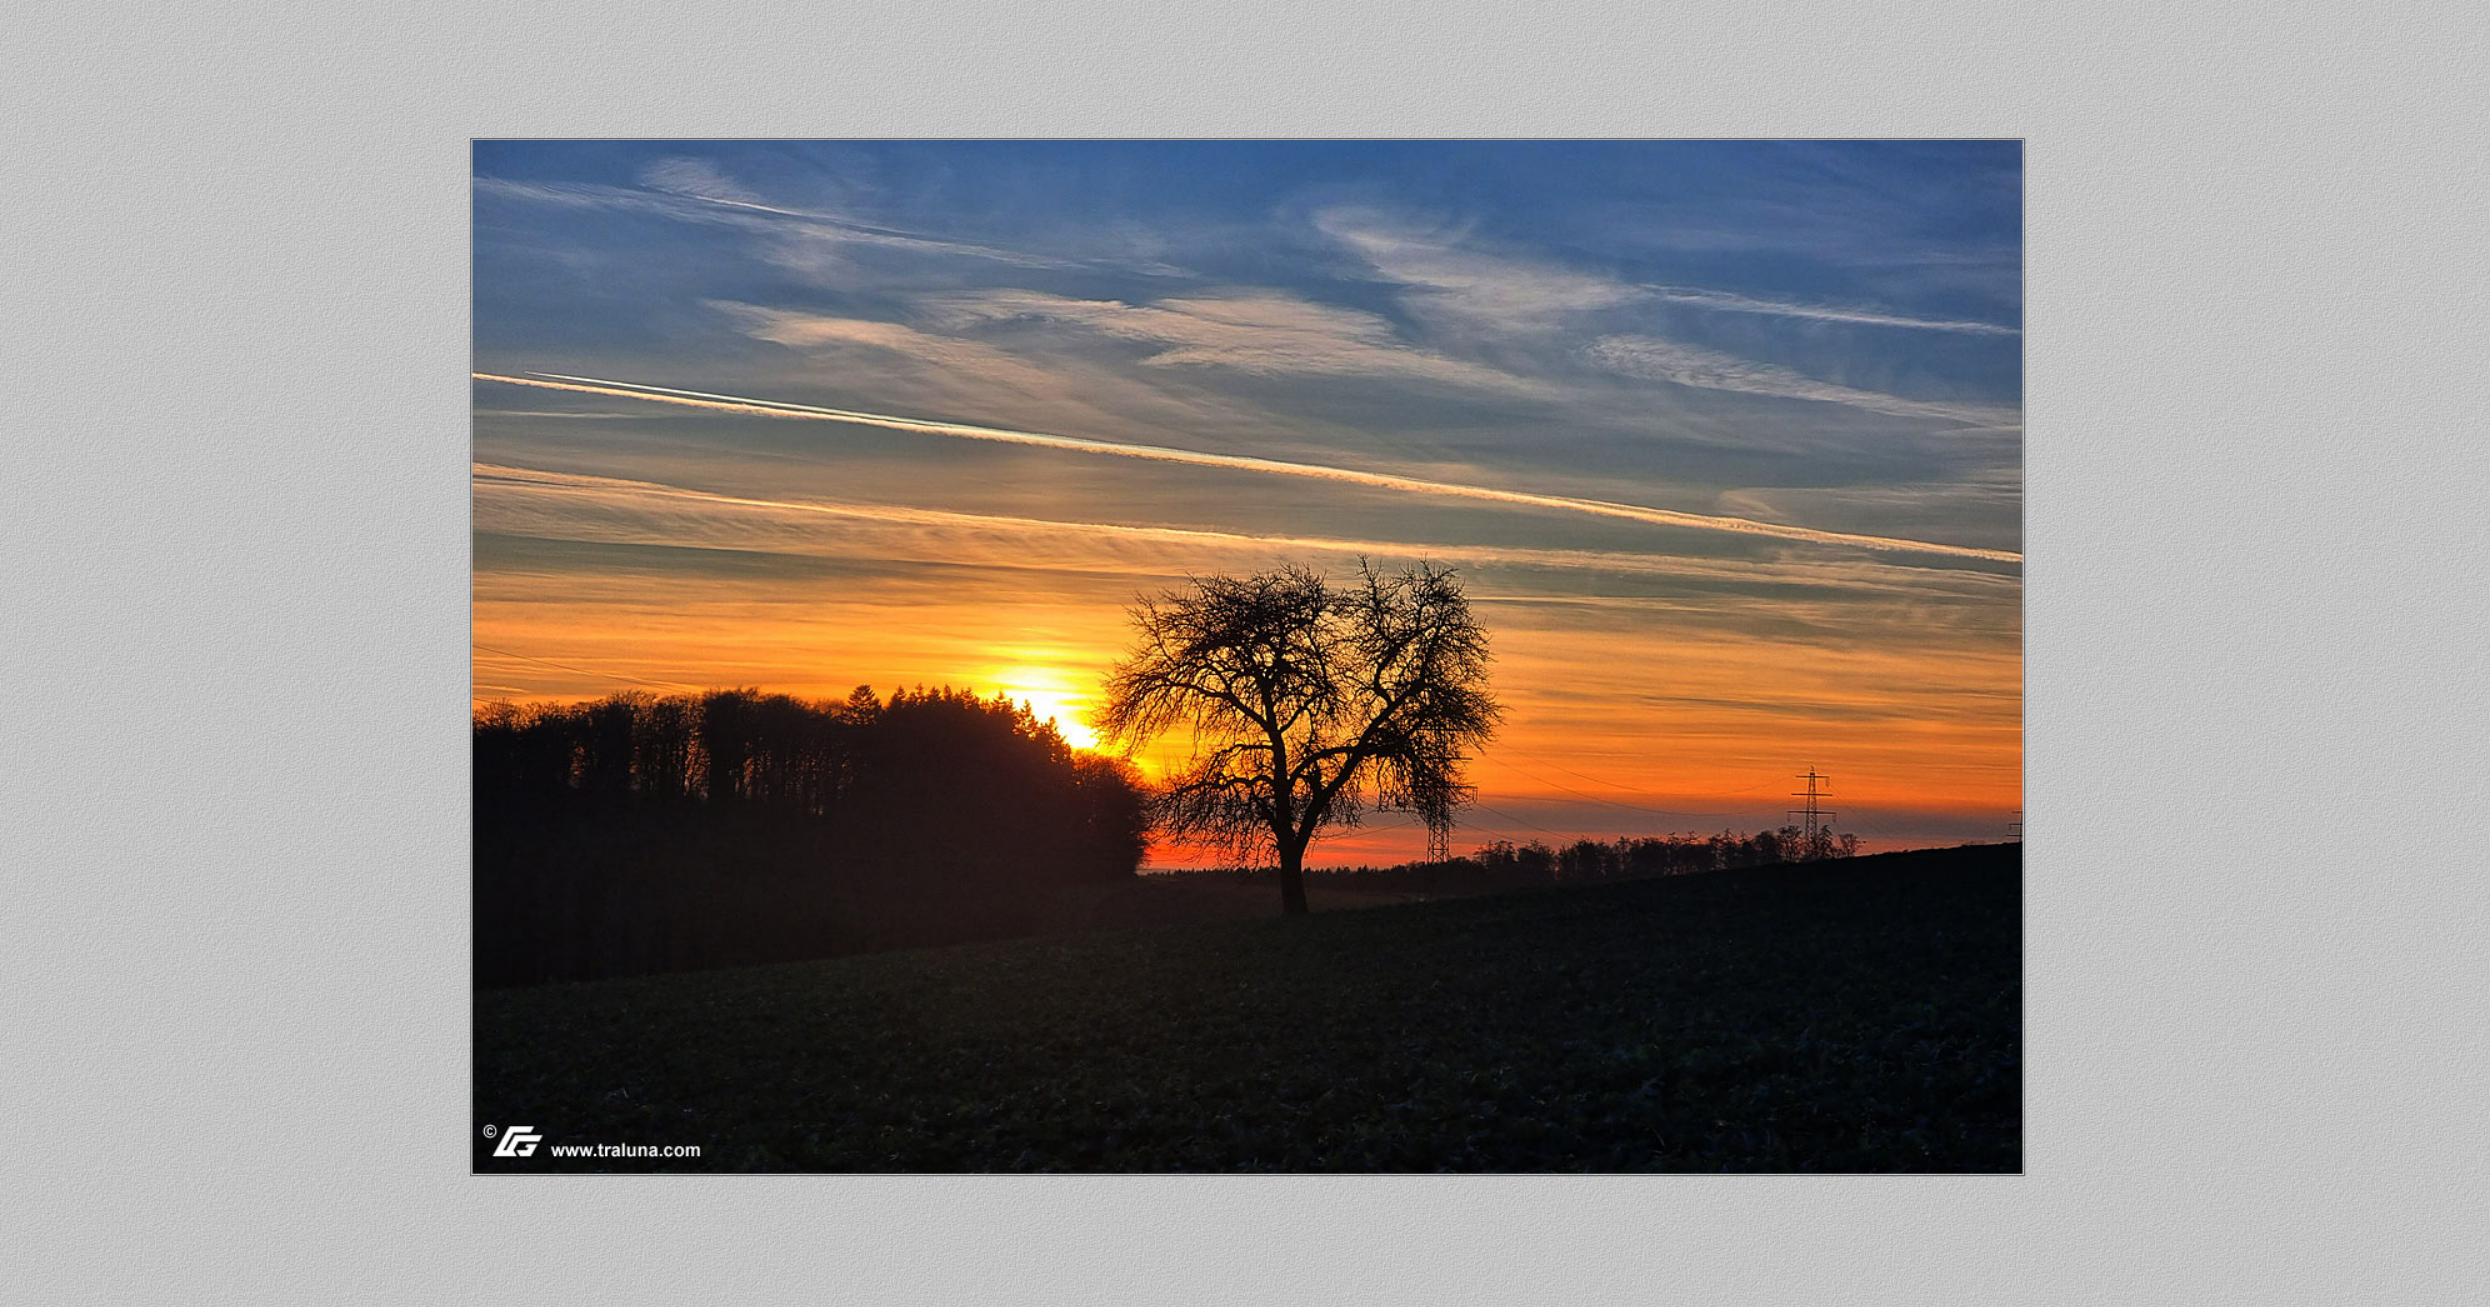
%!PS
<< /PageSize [2490 1307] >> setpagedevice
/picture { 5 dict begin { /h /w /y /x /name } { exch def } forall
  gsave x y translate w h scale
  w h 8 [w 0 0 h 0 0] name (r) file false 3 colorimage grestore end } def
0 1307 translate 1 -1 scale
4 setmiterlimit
1 setgray
0 0 2490 1307 rectfill
(img1.rgb) 0 0 2490 1307 picture
0.4 setgray
470.5 138.5 1554 1037 rectstroke
(img2.rgb) 472 140 1551 1034 picture
showpage
